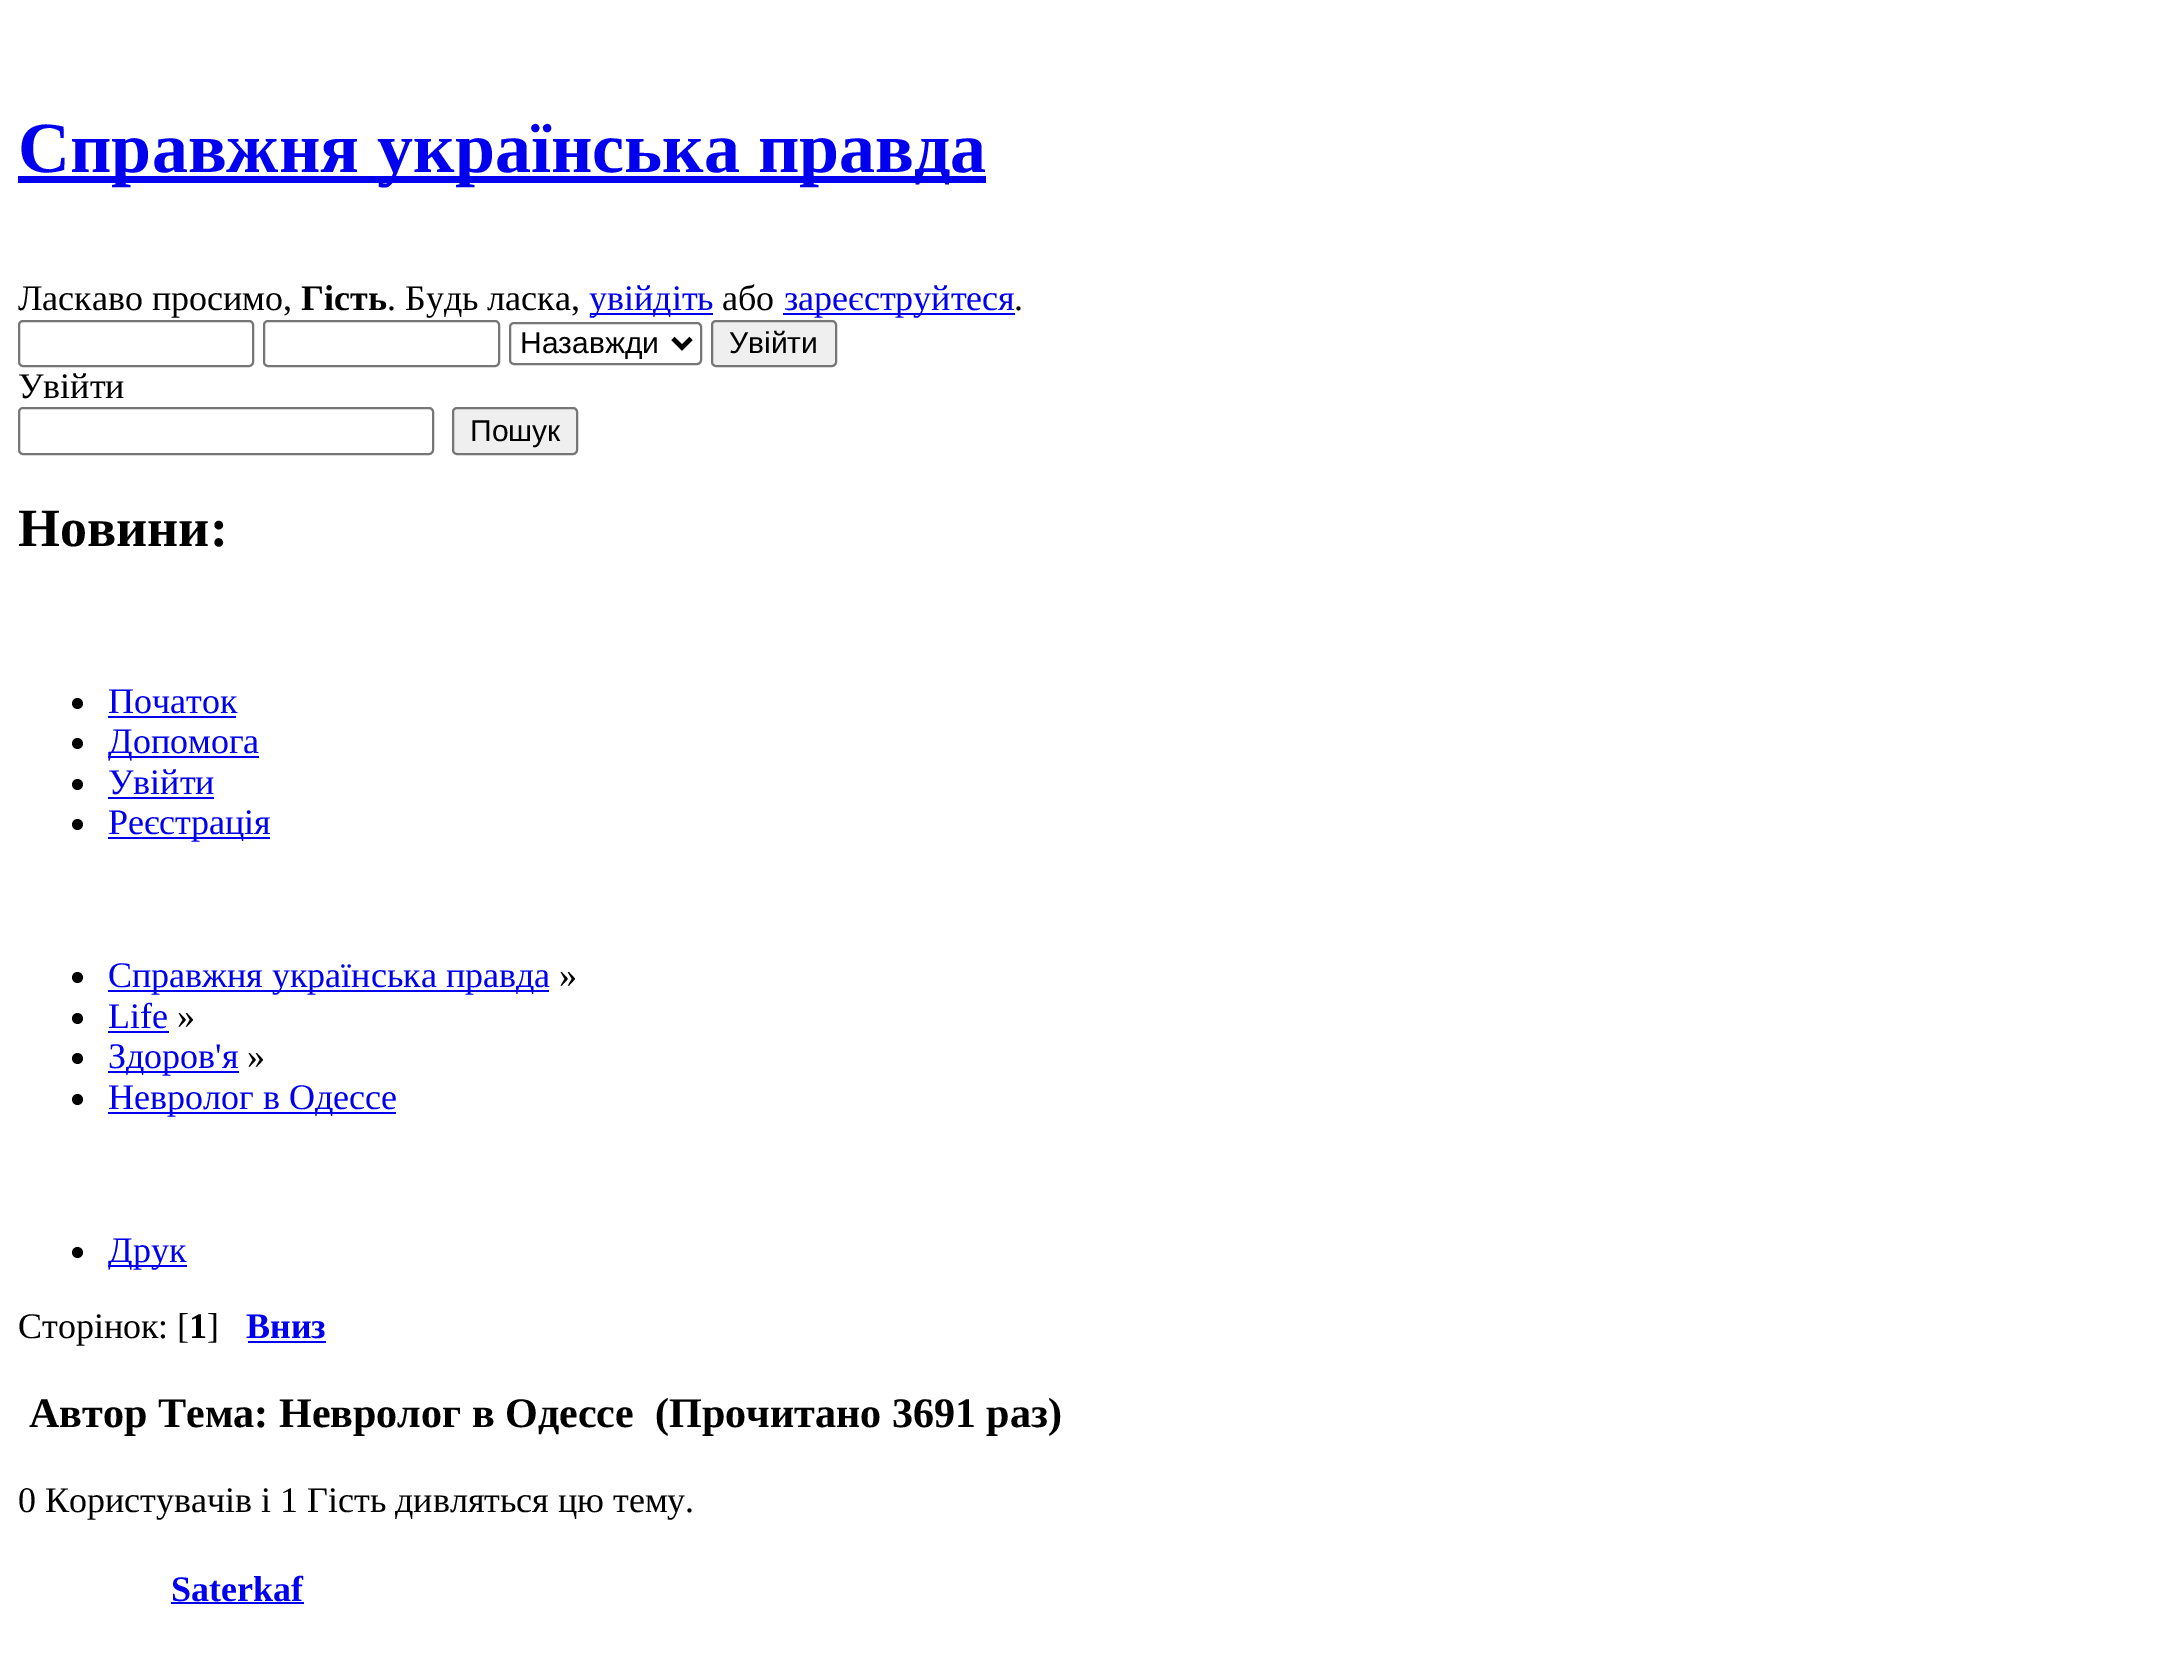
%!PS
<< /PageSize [2176 1664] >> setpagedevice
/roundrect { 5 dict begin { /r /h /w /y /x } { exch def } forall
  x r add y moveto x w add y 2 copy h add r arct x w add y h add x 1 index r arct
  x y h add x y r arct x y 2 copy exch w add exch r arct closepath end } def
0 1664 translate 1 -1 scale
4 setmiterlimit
1 setgray
0 0 2176 1664 rectfill
0 0 0.933 setrgbcolor
18 176 968 7 rectfill
/LiberationSerif-Bold [72 0 0 -72 0 0] selectfont
18 172 moveto (Справжня українська правда) show
/LiberationSerif-Regular [36 0 0 -36 0 0] selectfont
0 setgray
18 310 moveto (Ласкаво просимо,) show
/LiberationSerif-Bold [36 0 0 -36 0 0] selectfont
301 310 moveto (Гість) show
/LiberationSerif-Regular [36 0 0 -36 0 0] selectfont
387 310 moveto (. Будь ласка,) show
0 0 0.933 setrgbcolor
590 313 123 2 rectfill
589 310 moveto (увійдіть) show
0 setgray
722 310 moveto (або) show
0 0 0.933 setrgbcolor
783 313 232 2 rectfill
784 310 moveto (зареєструйтеся) show
0 setgray
1014 310 moveto (.) show
0.463 setgray
2 setlinewidth
19 321 234 45 4 roundrect stroke
264 321 235 45 4 roundrect stroke
510 323 191 41 4 roundrect stroke
0 setgray
4.5 setlinewidth
newpath 673 338.5 moveto 682 347.5 lineto 691 338.5 lineto stroke
/LiberationSans-Regular [30 0 0 -30 0 0] selectfont
520 353 moveto (Назавжди) show
0.937 setgray
712 321 124 45 4 roundrect gsave fill grestore
0.463 setgray
2 setlinewidth
stroke
0 setgray
729 353 moveto (Увійти) show
/LiberationSerif-Regular [36 0 0 -36 0 0] selectfont
18 398 moveto (Увійти) show
0.463 setgray
19 408 414 46 4 roundrect stroke
0.937 setgray
453 408 124 46 4 roundrect gsave fill grestore
0.463 setgray
stroke
/LiberationSans-Regular [30 0 0 -30 0 0] selectfont
0 setgray
470 441 moveto (Пошук) show
/LiberationSerif-Bold [54 0 0 -54 0 0] selectfont
18 546 moveto (Новини:) show
newpath 77.5 703.5 5.5 0 360 arc closepath fill
/LiberationSerif-Regular [36 0 0 -36 0 0] selectfont
0 0 0.933 setrgbcolor
108 713 moveto (Початок) show
108 716 128 2 rectfill
0 setgray
newpath 77.5 743.5 5.5 0 360 arc closepath fill
0 0 0.933 setrgbcolor
108 756 151 2 rectfill
108 753 moveto (Допомога) show
0 setgray
newpath 77.5 784.5 5.5 0 360 arc closepath fill
0 0 0.933 setrgbcolor
108 794 moveto (Увійти) show
108 797 106 2 rectfill
0 setgray
newpath 77.5 824.5 5.5 0 360 arc closepath fill
0 0 0.933 setrgbcolor
108 837 162 2 rectfill
108 834 moveto (Реєстрація) show
0 setgray
newpath 77.5 977.5 5.5 0 360 arc closepath fill
0 0 0.933 setrgbcolor
108 990 441 2 rectfill
108 987 moveto (Справжня українська правда) show
0 setgray
559 987 moveto (») show
newpath 77.5 1018.5 5.5 0 360 arc closepath fill
0 0 0.933 setrgbcolor
108 1028 moveto (Life) show
108 1031 61 2 rectfill
0 setgray
177 1028 moveto (») show
newpath 77.5 1058.5 5.5 0 360 arc closepath fill
0 0 0.933 setrgbcolor
108 1071 131 2 rectfill
108 1068 moveto (Здоров'я) show
0 setgray
247 1068 moveto (») show
newpath 77.5 1099.5 5.5 0 360 arc closepath fill
0 0 0.933 setrgbcolor
108 1112 288 2 rectfill
108 1109 moveto (Невролог в Одессе) show
0 setgray
newpath 77.5 1252.5 5.5 0 360 arc closepath fill
0 0 0.933 setrgbcolor
108 1265 79 2 rectfill
108 1262 moveto (Друк) show
0 setgray
18 1338 moveto (Сторінок: [) show
/LiberationSerif-Bold [36 0 0 -36 0 0] selectfont
189 1338 moveto (1) show
/LiberationSerif-Regular [36 0 0 -36 0 0] selectfont
207 1338 moveto (]) show
/LiberationSerif-Bold [36 0 0 -36 0 0] selectfont
0 0 0.933 setrgbcolor
246 1338 moveto (Вниз) show
248 1341 78 2 rectfill
/LiberationSerif-Bold [42.1 0 0 -42.1 0 0] selectfont
0 setgray
29 1427 moveto (Автор Тема: Невролог в Одессе  \(Прочитано 3691 раз\)) show
/LiberationSerif-Regular [36 0 0 -36 0 0] selectfont
18 1512 moveto (0 Користувачів і 1 Гість дивляться цю тему.) show
/LiberationSerif-Bold [36 0 0 -36 0 0] selectfont
0 0 0.933 setrgbcolor
171 1601 moveto (Saterkaf) show
171 1602 133 2 rectfill
showpage
